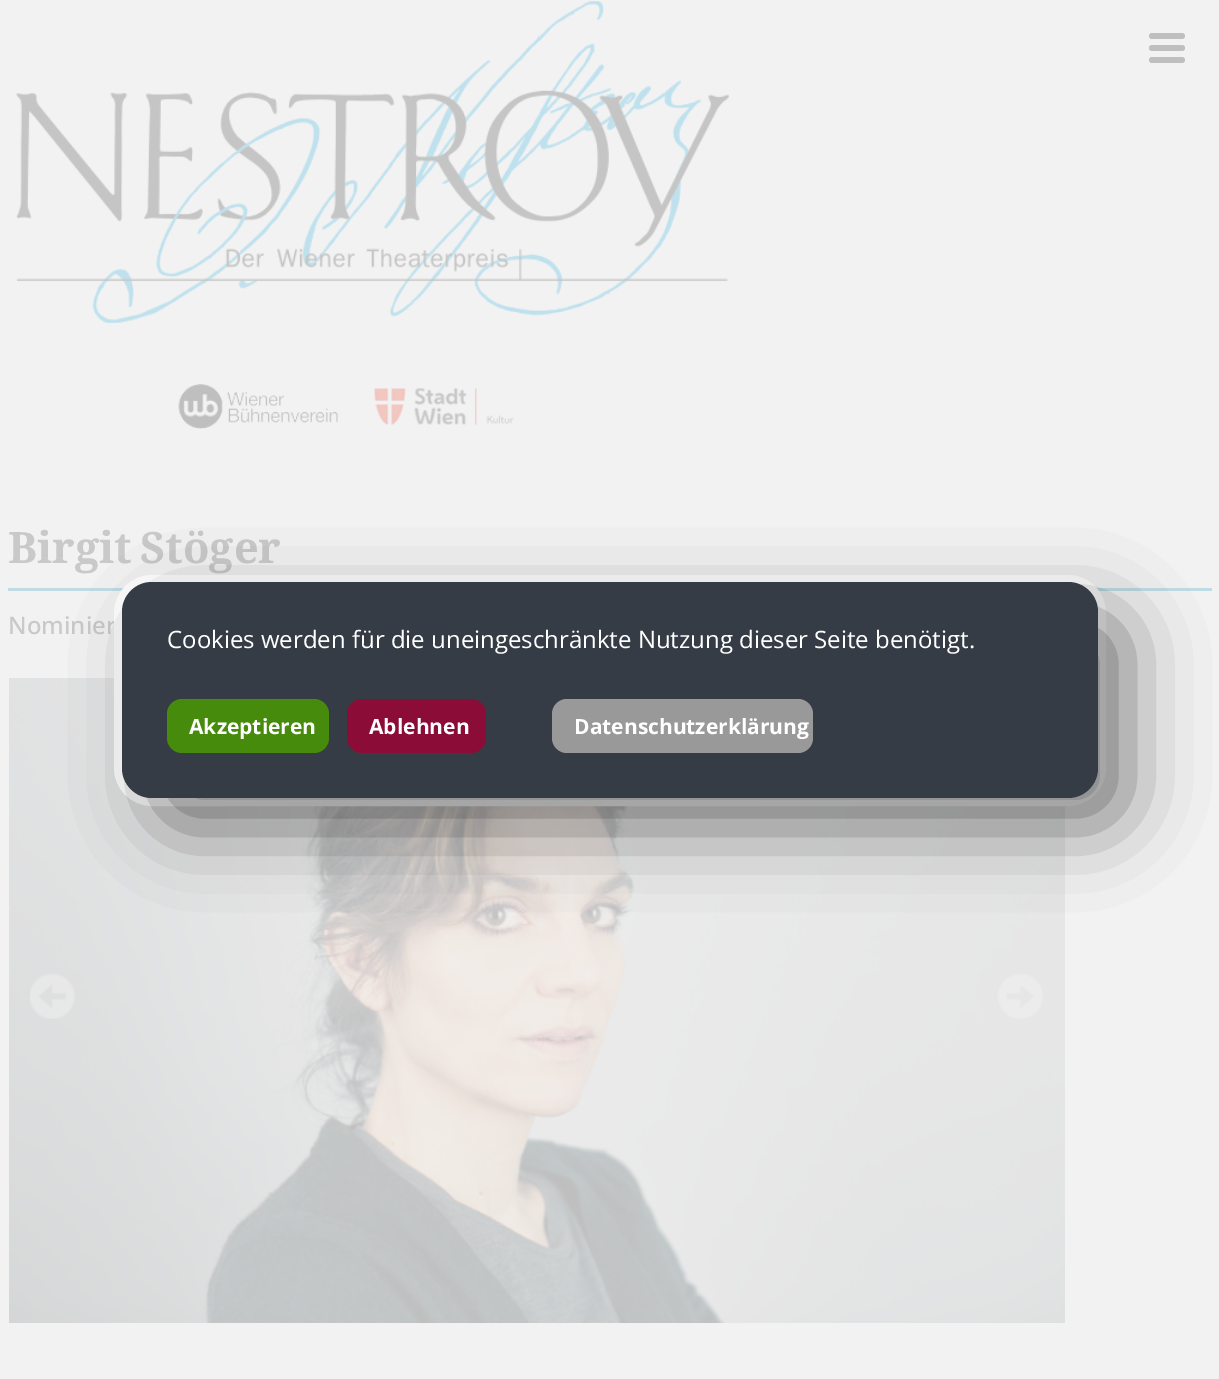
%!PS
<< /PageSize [1219 1379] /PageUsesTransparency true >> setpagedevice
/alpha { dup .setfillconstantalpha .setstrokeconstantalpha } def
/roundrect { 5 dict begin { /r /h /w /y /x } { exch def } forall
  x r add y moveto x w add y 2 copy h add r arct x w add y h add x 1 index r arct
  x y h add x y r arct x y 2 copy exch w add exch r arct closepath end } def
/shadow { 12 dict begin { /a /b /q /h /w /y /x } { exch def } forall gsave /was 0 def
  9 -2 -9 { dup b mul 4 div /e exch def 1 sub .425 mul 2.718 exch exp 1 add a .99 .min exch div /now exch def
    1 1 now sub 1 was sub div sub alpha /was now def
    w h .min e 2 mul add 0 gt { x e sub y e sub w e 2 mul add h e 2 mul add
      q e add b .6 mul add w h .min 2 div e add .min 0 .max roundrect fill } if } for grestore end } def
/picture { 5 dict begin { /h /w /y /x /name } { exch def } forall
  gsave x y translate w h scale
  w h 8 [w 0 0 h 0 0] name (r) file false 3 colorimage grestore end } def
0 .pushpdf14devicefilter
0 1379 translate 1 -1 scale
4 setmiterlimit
0.949 setgray
0 0 1219 1379 rectfill
0.749 setgray
1149 33 36 6 3 roundrect fill
1149 45 36 6 3 roundrect fill
1149 57 36 6 3 roundrect fill
(img1.rgb) 15 1 715 323 picture
(img2.rgb) 178 384 160 45 picture
(img3.rgb) 374 388 140 37 picture
0.749 0.863 0.898 setrgbcolor
8 588 1204 3 rectfill
/NotoSerif-Bold [43.25 0 0 -43.25 0 0] selectfont
0.788 setgray
8 563 moveto -3 0 32 (Birgit Stöger) widthshow
/OpenSans-Medium [24 0 0 -24 0 0] selectfont
8 634 moveto (Nominier) show
(img4.rgb) 9 678 1056 645 picture
(img5.rgb) 30 973 45 46 picture
(img6.rgb) 997 973 46 46 picture
1 setgray
8 setlinewidth
118 579 984 223 34 roundrect stroke
0 setgray
152 612 976 216 30 37.5 0.5 shadow
0.208 0.235 0.271 setrgbcolor
122 582 976 216 30 roundrect fill
/OpenSans-Regular [24 0 0 -24 0 0] selectfont
1 setgray
167 648 moveto (Cookies werden für die uneingeschränkte Nutzung dieser Seite benötigt.) show
0.275 0.545 0.047 setrgbcolor
167 699 162 54 15 roundrect fill
/OpenSans-Bold [21 0 0 -21 0 0] selectfont
1 setgray
189 734 moveto (Akzeptieren) show
0.545 0.047 0.212 setrgbcolor
347 699 139 54 15 roundrect fill
1 setgray
369 734 moveto (Ablehnen) show
0.6 setgray
552 699 261 54 15 roundrect fill
1 setgray
574 734 moveto (Datenschutzerklärung) show
.poppdf14devicefilter showpage
